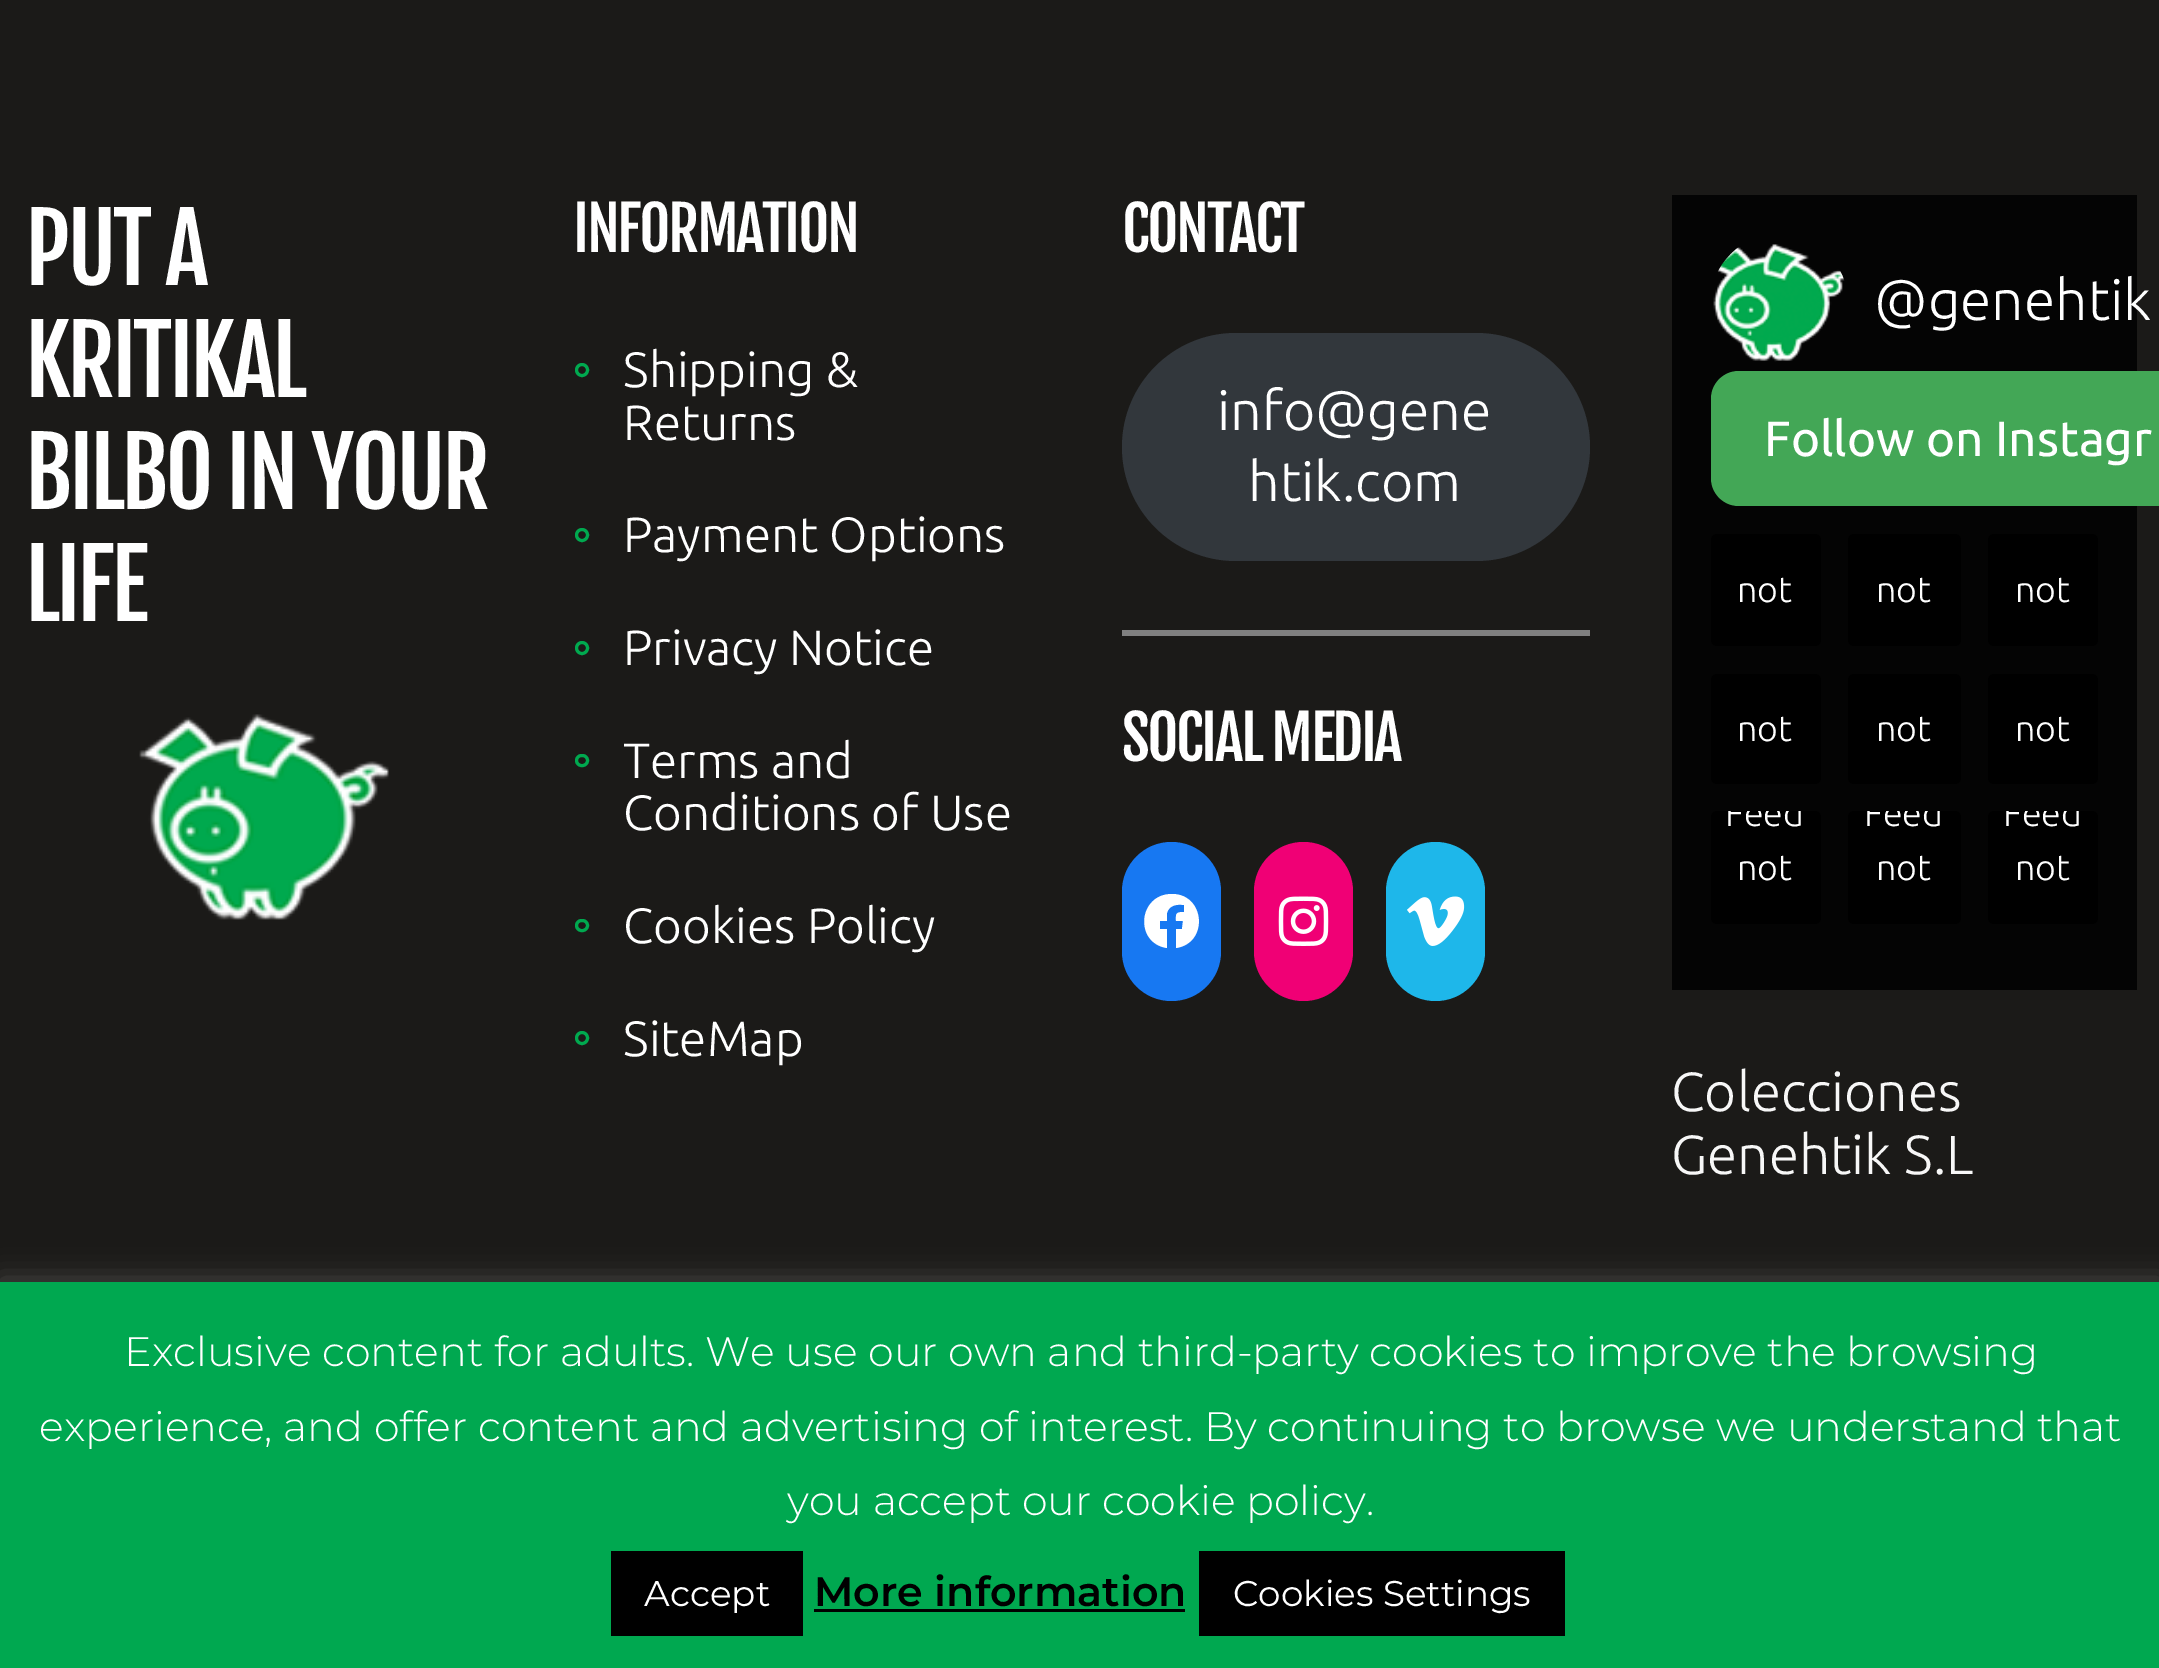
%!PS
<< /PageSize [2159 1668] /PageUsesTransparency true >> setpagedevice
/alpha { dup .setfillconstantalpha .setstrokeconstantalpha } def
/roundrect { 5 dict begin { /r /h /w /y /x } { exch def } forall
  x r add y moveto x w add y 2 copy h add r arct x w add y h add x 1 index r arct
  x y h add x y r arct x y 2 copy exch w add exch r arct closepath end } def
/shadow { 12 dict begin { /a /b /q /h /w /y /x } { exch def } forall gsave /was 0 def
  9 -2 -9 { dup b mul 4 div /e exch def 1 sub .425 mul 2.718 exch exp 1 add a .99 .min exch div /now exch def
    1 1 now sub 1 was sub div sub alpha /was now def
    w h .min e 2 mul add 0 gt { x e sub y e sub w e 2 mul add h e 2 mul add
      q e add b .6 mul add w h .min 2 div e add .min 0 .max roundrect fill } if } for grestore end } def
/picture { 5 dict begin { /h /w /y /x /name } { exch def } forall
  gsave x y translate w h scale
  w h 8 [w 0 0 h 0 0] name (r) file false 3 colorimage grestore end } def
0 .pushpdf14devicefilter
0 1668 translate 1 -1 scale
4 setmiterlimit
0.106 0.102 0.094 setrgbcolor
0 0 2159 1668 rectfill
/FjallaOne-Regular [93.5 0 0 -93.5 0 0] selectfont
1 setgray
25 285 moveto -3.75 0 (PUT A) ashow
25 397 moveto -3.75 0 (KRITIKAL) ashow
25 509 moveto -3.75 0 (BILBO IN YOUR) ashow
25 621 moveto -3.75 0 (LIFE) ashow
(img1.rgb) 139 714 250 206 picture
/FjallaOne-Regular [60.5 0 0 -60.5 0 0] selectfont
573 252 moveto -2.5 0 (INFORMATION) ashow
0 0.663 0.31 setrgbcolor
3 setlinewidth
newpath 582 370 5.5 0 360 arc closepath stroke
/Ubuntu-Light [49.5 0 0 -49.5 0 0] selectfont
1 setgray
623 387 moveto (Shipping &) show
623 440 moveto (Returns) show
0 0.663 0.31 setrgbcolor
newpath 582 535 5.5 0 360 arc closepath stroke
1 setgray
623 552 moveto (Payment Options) show
0 0.663 0.31 setrgbcolor
newpath 582 648 5.5 0 360 arc closepath stroke
1 setgray
623 665 moveto (Privacy Notice) show
0 0.663 0.31 setrgbcolor
576.5 755.5 11 10 5 roundrect stroke
1 setgray
623 778 moveto (Terms and) show
623 830 moveto (Conditions of Use) show
0 0.663 0.31 setrgbcolor
576.5 920.5 11 10 5 roundrect stroke
1 setgray
623 943 moveto (Cookies Policy) show
0 0.663 0.31 setrgbcolor
newpath 582 1038 5.5 0 360 arc closepath stroke
1 setgray
623 1056 moveto (SiteMap) show
/FjallaOne-Regular [60.5 0 0 -60.5 0 0] selectfont
1122 252 moveto -2.5 0 (CONTACT) ashow
0.196 0.216 0.235 setrgbcolor
1122 333 468 228 114 roundrect fill
/Ubuntu-Light [55.5 0 0 -55.5 0 0] selectfont
1 setgray
1217 430 moveto (info@gene) show
1248 501 moveto (htik.com) show
0.502 setgray
1122 630 468 6 rectfill
/FjallaOne-Regular [60.5 0 0 -60.5 0 0] selectfont
1 setgray
1122 761 moveto -2.5 0 (SOCIAL MEDIA) ashow
0.09 0.471 0.949 setrgbcolor
1122 842 99 159 49.5 roundrect fill
1 setgray
newpath 1172 894 moveto 1138 894 1134 943 1167 948 curveto 1167 929 lineto 1160 929 lineto 1160 921 lineto 1167 921 lineto 1167 913 lineto 1169 905 1177 904 1184 905 curveto 1184 912 lineto 1175 912 1176 914 1176 921 curveto 1183 921 lineto 1182 929 lineto 1176 929 lineto 1176 948 lineto 1209 943 1205 894 1172 894 curveto closepath fill
0.941 0 0.459 setrgbcolor
1254 842 99 159 49.5 roundrect fill
(img2.rgb) 1278 896 51 50 picture
0.118 0.718 0.918 setrgbcolor
1386 842 99 159 49.5 roundrect fill
(img3.rgb) 1407 896 58 50 picture
0.016 setgray
1672 195 465 795 rectfill
(img4.rgb) 1713 244 132 118 picture
/Ubuntu-Light [57 0 0 -57 0 0] selectfont
1 setgray
1874 320 moveto (@genehtik) show
0.263 0.655 0.337 setrgbcolor
newpath 1739 371 moveto 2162 371 lineto 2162 506 lineto 1739 506 lineto 1723.5 506 1711 493.5 1711 478 curveto 1711 399 lineto 1711 383.5 1723.5 371 1739 371 curveto closepath fill
/Ubuntu-Regular [49.5 0 0 -49.5 0 0] selectfont
1 setgray
1764 456 moveto (Follow on Instagr) show
0 setgray
1711 534 110 112 6 roundrect fill
/Ubuntu-Light [35.75 0 0 -35.75 0 0] selectfont
1 setgray
1737 602 moveto (not) show
0 setgray
1848 534 113 112 6 roundrect fill
1 setgray
1876 602 moveto (not) show
0 setgray
1988 534 110 112 6 roundrect fill
1 setgray
2015 602 moveto (not) show
0 setgray
1711 674 110 110 6 roundrect fill
1 setgray
1737 741 moveto (not) show
0 setgray
1848 674 113 110 6 roundrect fill
1 setgray
1876 741 moveto (not) show
0 setgray
1988 674 110 110 6 roundrect fill
1 setgray
2015 741 moveto (not) show
0 setgray
1711 811 110 113 6 roundrect fill
gsave
1711 811 110 113 6 roundrect clip newpath
1 setgray
1725 826 moveto (Feed) show
grestore
1 setgray
1737 880 moveto (not) show
0 setgray
1848 811 113 113 6 roundrect fill
gsave
1848 811 113 113 6 roundrect clip newpath
1 setgray
1864 826 moveto (Feed) show
grestore
1 setgray
1876 880 moveto (not) show
0 setgray
1988 811 110 113 6 roundrect fill
gsave
1988 811 110 113 6 roundrect clip newpath
1 setgray
2003 826 moveto (Feed) show
grestore
1 setgray
2015 880 moveto (not) show
/Ubuntu-Light [55 0 0 -55 0 0] selectfont
0.969 setgray
1671 1111 moveto (Colecciones) show
1671 1174 moveto (Genehtik S.L) show
0.675 0.671 0.671 setrgbcolor
0 1279 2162 388 0 14 0.3 shadow
0 0.659 0.314 setrgbcolor
0 1282 2159 386 rectfill
/Montserrat-Light [41.25 0 0 -41.25 0 0] selectfont
1 setgray
124 1366 moveto (Exclusive content for adults. We use our own and third-party cookies to improve the browsing) show
39 1441 moveto (experience, and offer content and advertising of interest. By continuing to browse we understand that) show
787 1515 moveto (you accept our cookie policy.) show
0 setgray
611 1551 192 85 rectfill
/Montserrat-Regular [35.75 0 0 -35.75 0 0] selectfont
1 setgray
644 1606 moveto (Accept) show
/Montserrat-SemiBold [41.25 0 0 -41.25 0 0] selectfont
0 setgray
814 1606 moveto (More information) show
814 1609 371 3 rectfill
1199 1551 366 85 rectfill
/Montserrat-Regular [35.75 0 0 -35.75 0 0] selectfont
1 setgray
1233 1606 moveto (Cookies Settings) show
.poppdf14devicefilter showpage
